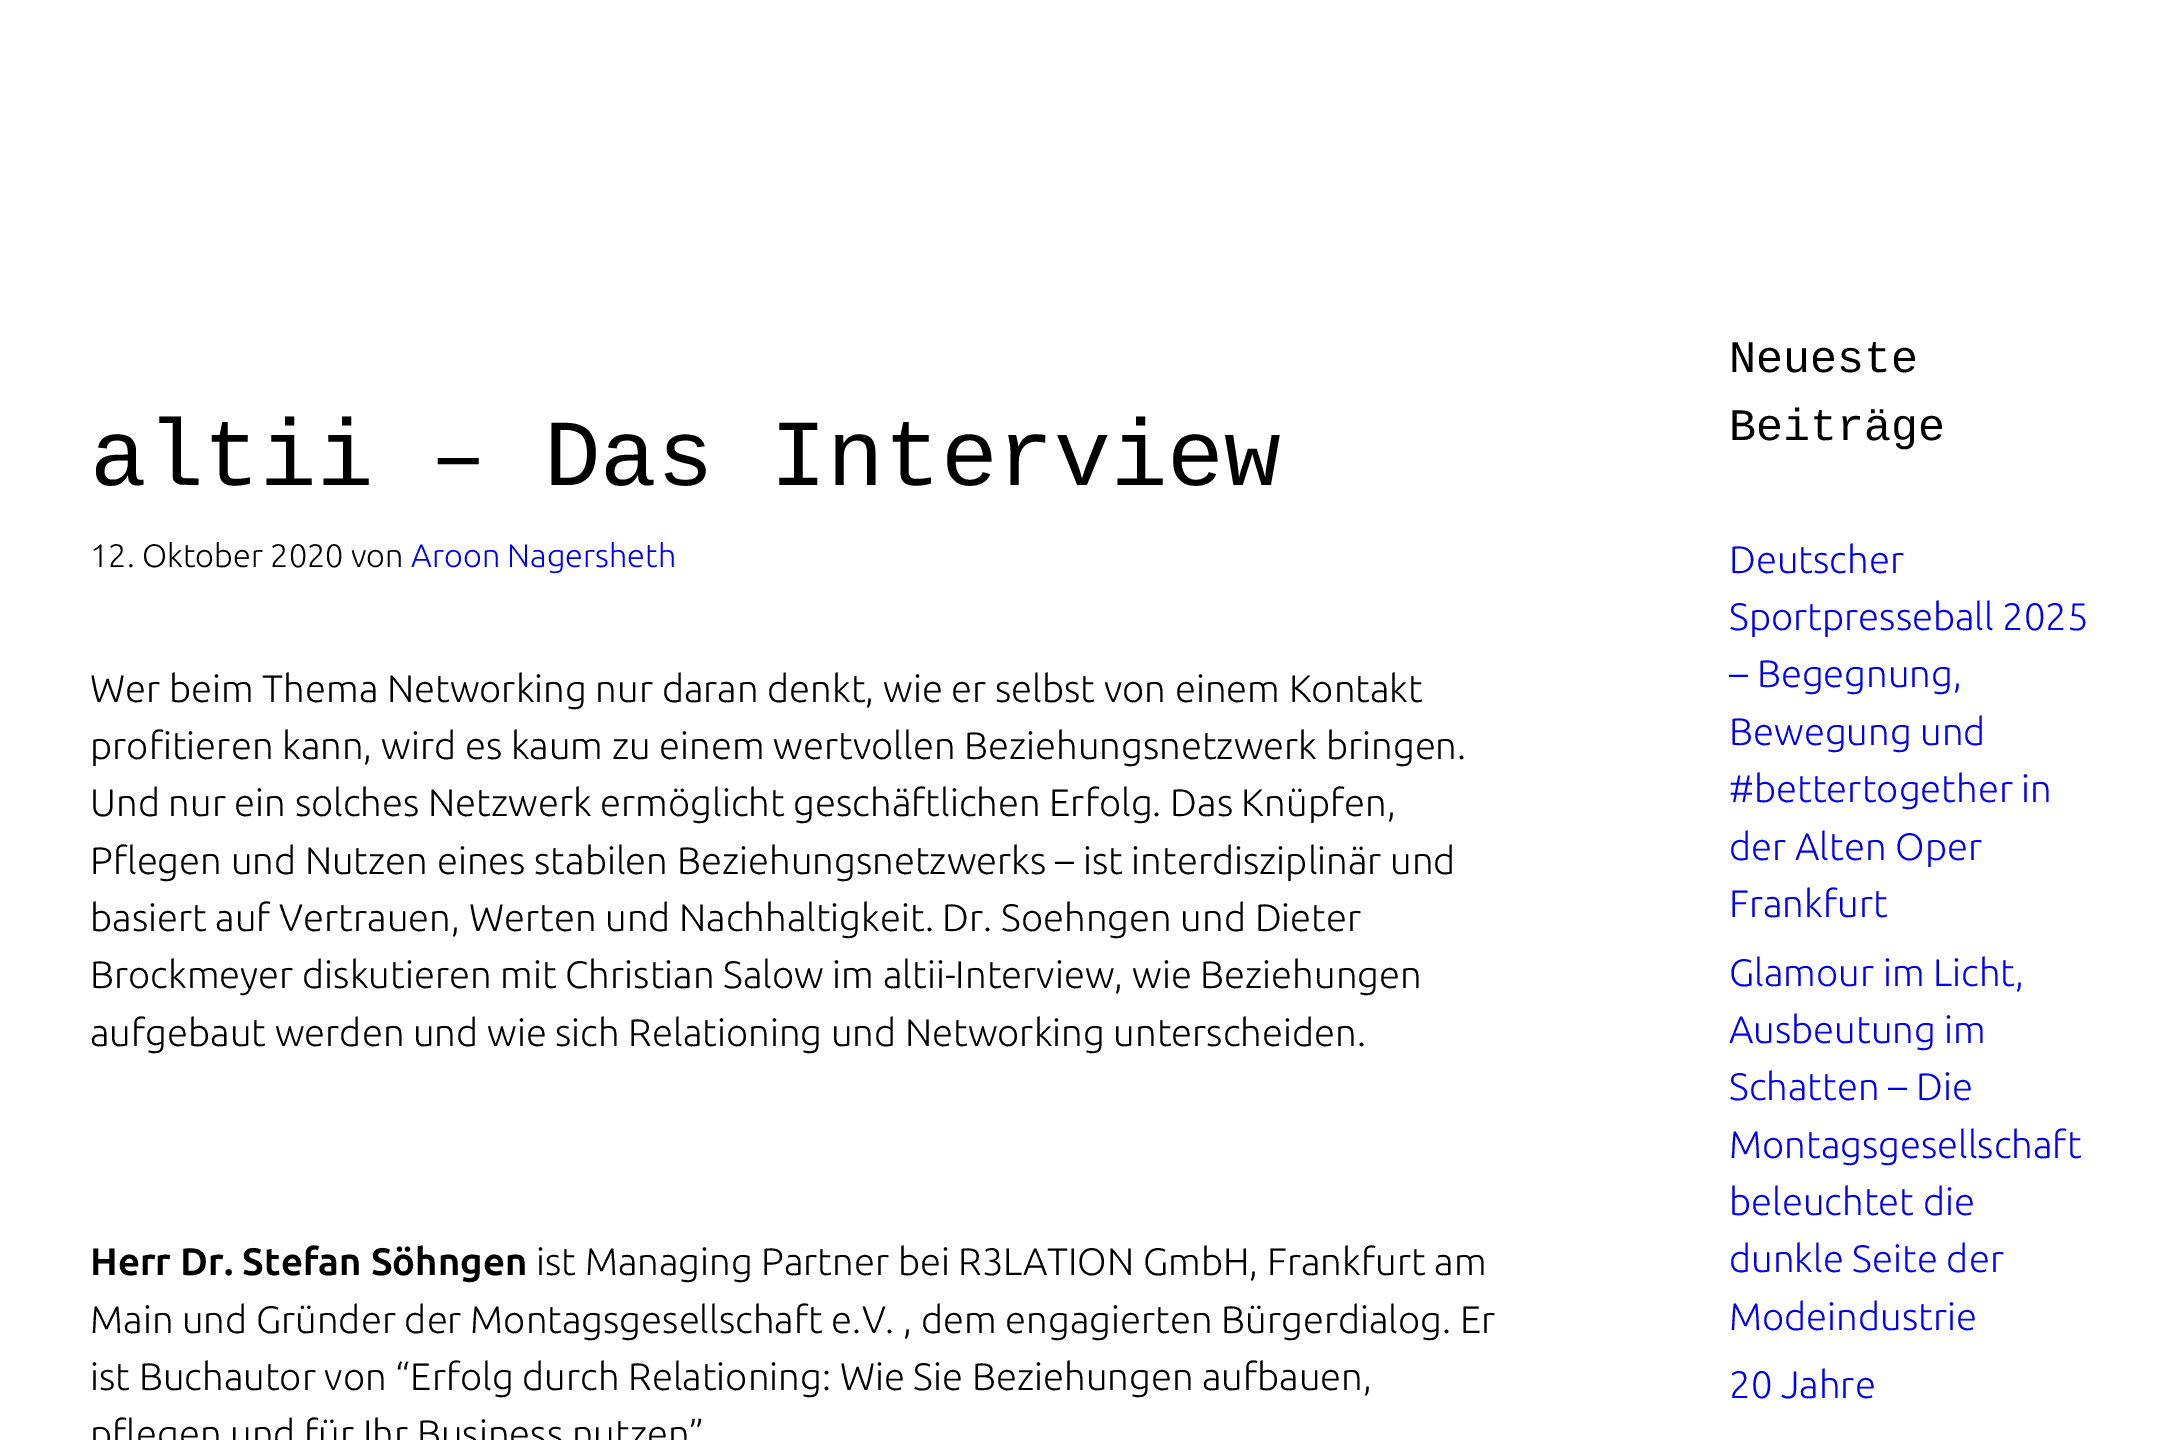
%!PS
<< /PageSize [2183 1440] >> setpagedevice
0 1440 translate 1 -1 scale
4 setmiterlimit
1 setgray
0 0 2183 1440 rectfill
/LiberationMono-Regular [94.5 0 0 -94.5 0 0] selectfont
0 setgray
90 485 moveto (altii – Das Interview) show
/Ubuntu-Light [32.5 0 0 -32.5 0 0] selectfont
90 567 moveto (12. Oktober 2020 von) show
0 0 0.933 setrgbcolor
411 567 moveto (Aroon Nagersheth) show
/Ubuntu-Light [38.25 0 0 -38.25 0 0] selectfont
0 setgray
90 702 moveto (Wer beim Thema Networking nur daran denkt, wie er selbst von einem Kontakt) show
90 759 moveto (profitieren kann, wird es kaum zu einem wertvollen Beziehungsnetzwerk bringen.) show
90 816 moveto (Und nur ein solches Netzwerk ermöglicht geschäftlichen Erfolg. Das Knüpfen,) show
90 874 moveto (Pflegen und Nutzen eines stabilen Beziehungsnetzwerks – ist interdisziplinär und) show
90 931 moveto (basiert auf Vertrauen, Werten und Nachhaltigkeit. Dr. Soehngen und Dieter) show
90 988 moveto (Brockmeyer diskutieren mit Christian Salow im altii-Interview, wie Beziehungen) show
90 1046 moveto (aufgebaut werden und wie sich Relationing und Networking unterscheiden.) show
/Ubuntu-Bold [38.25 0 0 -38.25 0 0] selectfont
90 1275 moveto (Herr Dr. Stefan Söhngen) show
/Ubuntu-Light [38.25 0 0 -38.25 0 0] selectfont
536 1275 moveto (ist Managing Partner bei R3LATION GmbH, Frankfurt am) show
90 1333 moveto (Main und Gründer der Montagsgesellschaft e.V. , dem engagierten Bürgerdialog. Er) show
90 1390 moveto (ist Buchautor von “Erfolg durch Relationing: Wie Sie Beziehungen aufbauen,) show
90 1447 moveto (pflegen und für Ihr Business nutzen”) show
/LiberationMono-Regular [45 0 0 -45 0 0] selectfont
1729 372 moveto (Neueste) show
1729 440 moveto (Beiträge) show
/Ubuntu-Light [38.25 0 0 -38.25 0 0] selectfont
0 0 0.933 setrgbcolor
1729 573 moveto (Deutscher) show
1729 630 moveto (Sportpresseball 2025) show
1729 687 moveto (– Begegnung,) show
1729 745 moveto (Bewegung und) show
1729 802 moveto (#bettertogether in) show
1729 860 moveto (der Alten Oper) show
1729 917 moveto (Frankfurt) show
1729 986 moveto (Glamour im Licht,) show
1729 1043 moveto (Ausbeutung im) show
1729 1100 moveto (Schatten – Die) show
1729 1158 moveto (Montagsgesellschaft) show
1729 1215 moveto (beleuchtet die) show
1729 1272 moveto (dunkle Seite der) show
1729 1330 moveto (Modeindustrie) show
1729 1398 moveto (20 Jahre) show
showpage
